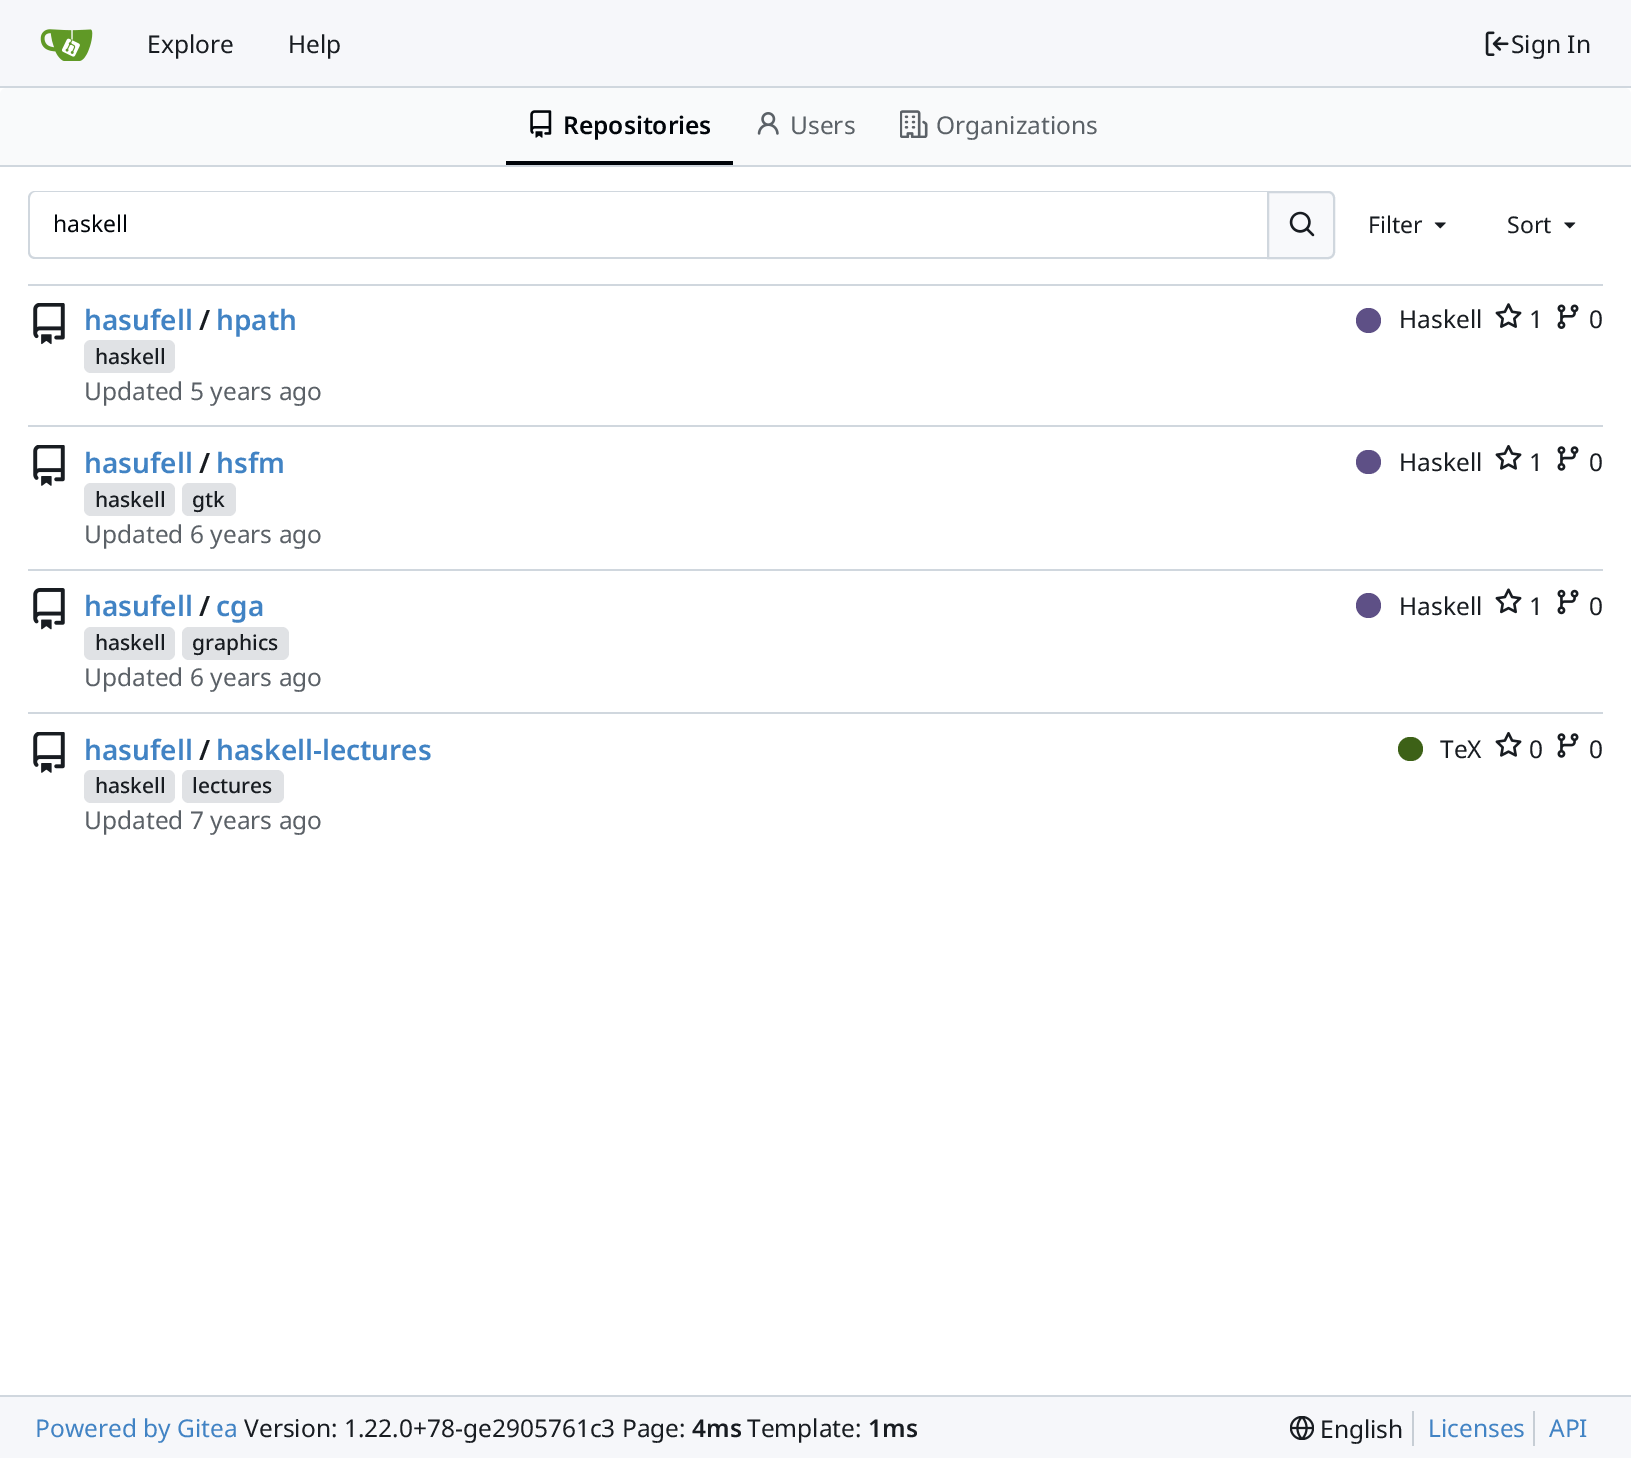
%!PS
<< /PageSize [1631 1458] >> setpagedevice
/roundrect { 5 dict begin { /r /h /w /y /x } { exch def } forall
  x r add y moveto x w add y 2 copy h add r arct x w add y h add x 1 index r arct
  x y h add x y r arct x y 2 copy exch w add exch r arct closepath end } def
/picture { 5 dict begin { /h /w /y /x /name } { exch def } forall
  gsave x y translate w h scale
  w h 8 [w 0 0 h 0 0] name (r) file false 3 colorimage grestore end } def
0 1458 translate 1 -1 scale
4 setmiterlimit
1 setgray
0 0 1631 1458 rectfill
0.965 0.969 0.98 setrgbcolor
0 0 1631 86 rectfill
0.816 0.843 0.871 setrgbcolor
0 86 1631 2 rectfill
(img1.rgb) 40 29 53 32 picture
/NotoSans-Regular [24.5 0 0 -24.5 0 0] selectfont
0.094 0.11 0.129 setrgbcolor
147 53 moveto (Explore) show
288 53 moveto (Help) show
(img2.rgb) 1485 31 24 25 picture
1511 53 moveto (Sign In) show
0.976 0.98 0.984 setrgbcolor
newpath 7 88 moveto 1624 88 lineto 1628 88 1631 91 1631 95 curveto 1631 166 lineto 0 166 lineto 0 95 lineto 0 91 3 88 7 88 curveto closepath fill
0.816 0.843 0.871 setrgbcolor
0 165 1631 2 rectfill
0.004 0.02 0.039 setrgbcolor
506 161 227 4 rectfill
(img3.rgb) 530 110 22 28 picture
/NotoSans-SemiBold [24.5 0 0 -24.5 0 0] selectfont
563 134 moveto (Repositories) show
(img4.rgb) 757 112 22 23 picture
/NotoSans-Regular [24.5 0 0 -24.5 0 0] selectfont
0.357 0.38 0.404 setrgbcolor
790 134 moveto (Users) show
(img5.rgb) 900 110 28 28 picture
936 134 moveto (Organizations) show
0.816 0.843 0.871 setrgbcolor
newpath 35 191 moveto 1267 191 lineto 1267 259 lineto 35 259 lineto 31 259 28 256 28 252 curveto 28 198 lineto 28 194 31 191 35 191 curveto closepath 35 192 moveto 1267 192 lineto 1267 257 lineto 35 257 lineto 32 257 30 255 30 252 curveto 30 198 lineto 30 195 32 192 35 192 curveto closepath eofill
/NotoSans-Regular [23 0 0 -23 0 0] selectfont
0.004 0.02 0.039 setrgbcolor
53 232 moveto (haskell) show
0.973 0.976 0.984 setrgbcolor
newpath 1268 192 moveto 1328 192 lineto 1331.5 192 1334 194.5 1334 198 curveto 1334 252 lineto 1334 255.5 1331.5 258 1328 258 curveto 1268 258 lineto closepath gsave fill grestore
0.816 0.843 0.871 setrgbcolor
2 setlinewidth
stroke
(img6.rgb) 1289 211 26 26 picture
0.094 0.11 0.129 setrgbcolor
1368 233 moveto (Filter) show
(img7.rgb) 1434 222 12 7 picture
1507 233 moveto (Sort) show
(img8.rgb) 1564 222 12 7 picture
0.816 0.843 0.871 setrgbcolor
28 284 1575 2 rectfill
(img9.rgb) 33 303 32 42 picture
/NotoSans-SemiBold [28 0 0 -28 0 0] selectfont
0.255 0.514 0.769 setrgbcolor
84 330 moveto (hasufell) show
0.094 0.11 0.129 setrgbcolor
199 330 moveto (/) show
0.255 0.514 0.769 setrgbcolor
216 330 moveto (hpath) show
0.369 0.314 0.525 setrgbcolor
newpath 1368.5 320.5 12.5 0 360 arc closepath fill
/NotoSans-Regular [24.5 0 0 -24.5 0 0] selectfont
0.094 0.11 0.129 setrgbcolor
1399 328 moveto (Haskell) show
(img10.rgb) 1495 303 27 25 picture
1529 328 moveto (1) show
(img11.rgb) 1557 304 22 25 picture
1589 328 moveto (0) show
0.878 0.886 0.898 setrgbcolor
84 340 91 33 7 roundrect fill
/NotoSans-Medium [21 0 0 -21 0 0] selectfont
0.094 0.11 0.129 setrgbcolor
95 364 moveto (haskell) show
/NotoSans-Regular [24.5 0 0 -24.5 0 0] selectfont
0.357 0.38 0.404 setrgbcolor
84 400 moveto (Updated 5 years ago) show
0.816 0.843 0.871 setrgbcolor
28 425 1575 2 rectfill
(img12.rgb) 33 445 32 41 picture
/NotoSans-SemiBold [28 0 0 -28 0 0] selectfont
0.255 0.514 0.769 setrgbcolor
84 473 moveto (hasufell) show
0.094 0.11 0.129 setrgbcolor
199 473 moveto (/) show
0.255 0.514 0.769 setrgbcolor
216 473 moveto (hsfm) show
0.369 0.314 0.525 setrgbcolor
1356 450 25 24 12 roundrect fill
/NotoSans-Regular [24.5 0 0 -24.5 0 0] selectfont
0.094 0.11 0.129 setrgbcolor
1399 471 moveto (Haskell) show
(img13.rgb) 1495 445 27 25 picture
1529 471 moveto (1) show
(img14.rgb) 1557 446 22 25 picture
1589 471 moveto (0) show
0.878 0.886 0.898 setrgbcolor
84 483 91 33 7 roundrect fill
/NotoSans-Medium [21 0 0 -21 0 0] selectfont
0.094 0.11 0.129 setrgbcolor
95 507 moveto (haskell) show
0.878 0.886 0.898 setrgbcolor
182 483 54 33 7 roundrect fill
0.094 0.11 0.129 setrgbcolor
192 507 moveto (gtk) show
/NotoSans-Regular [24.5 0 0 -24.5 0 0] selectfont
0.357 0.38 0.404 setrgbcolor
84 543 moveto (Updated 6 years ago) show
0.816 0.843 0.871 setrgbcolor
28 569 1575 2 rectfill
(img15.rgb) 33 588 32 42 picture
/NotoSans-SemiBold [28 0 0 -28 0 0] selectfont
0.255 0.514 0.769 setrgbcolor
84 616 moveto (hasufell) show
0.094 0.11 0.129 setrgbcolor
199 616 moveto (/) show
0.255 0.514 0.769 setrgbcolor
216 616 moveto (cga) show
0.369 0.314 0.525 setrgbcolor
newpath 1368.5 605.5 12.5 0 360 arc closepath fill
/NotoSans-Regular [24.5 0 0 -24.5 0 0] selectfont
0.094 0.11 0.129 setrgbcolor
1399 615 moveto (Haskell) show
(img16.rgb) 1495 588 27 26 picture
1529 615 moveto (1) show
(img17.rgb) 1557 589 22 26 picture
1589 615 moveto (0) show
0.878 0.886 0.898 setrgbcolor
84 627 91 33 7 roundrect fill
/NotoSans-Medium [21 0 0 -21 0 0] selectfont
0.094 0.11 0.129 setrgbcolor
95 650 moveto (haskell) show
0.878 0.886 0.898 setrgbcolor
182 627 107 33 7 roundrect fill
0.094 0.11 0.129 setrgbcolor
192 650 moveto (graphics) show
/NotoSans-Regular [24.5 0 0 -24.5 0 0] selectfont
0.357 0.38 0.404 setrgbcolor
84 686 moveto (Updated 6 years ago) show
0.816 0.843 0.871 setrgbcolor
28 712 1575 2 rectfill
(img12.rgb) 33 732 32 41 picture
/NotoSans-SemiBold [28 0 0 -28 0 0] selectfont
0.255 0.514 0.769 setrgbcolor
84 760 moveto (hasufell) show
0.094 0.11 0.129 setrgbcolor
199 760 moveto (/) show
0.255 0.514 0.769 setrgbcolor
216 760 moveto (haskell-lectures) show
0.239 0.38 0.09 setrgbcolor
1398 737 25 24 12 roundrect fill
/NotoSans-Regular [24.5 0 0 -24.5 0 0] selectfont
0.094 0.11 0.129 setrgbcolor
1440 758 moveto (TeX) show
(img13.rgb) 1495 732 27 25 picture
1529 758 moveto (0) show
(img14.rgb) 1557 733 22 25 picture
1589 758 moveto (0) show
0.878 0.886 0.898 setrgbcolor
84 770 91 33 7 roundrect fill
/NotoSans-Medium [21 0 0 -21 0 0] selectfont
0.094 0.11 0.129 setrgbcolor
95 793 moveto (haskell) show
0.878 0.886 0.898 setrgbcolor
182 770 102 33 7 roundrect fill
0.094 0.11 0.129 setrgbcolor
192 793 moveto (lectures) show
/NotoSans-Regular [24.5 0 0 -24.5 0 0] selectfont
0.357 0.38 0.404 setrgbcolor
84 829 moveto (Updated 7 years ago) show
0.965 0.969 0.98 setrgbcolor
0 1397 1631 61 rectfill
0.816 0.843 0.871 setrgbcolor
0 1395 1631 2 rectfill
0.255 0.514 0.769 setrgbcolor
35 1437 moveto (Powered by Gitea) show
0.094 0.11 0.129 setrgbcolor
244 1437 moveto (Version: 1.22.0+78-ge2905761c3 Page:) show
/NotoSans-SemiBold [24.5 0 0 -24.5 0 0] selectfont
692 1437 moveto (4ms) show
/NotoSans-Regular [24.5 0 0 -24.5 0 0] selectfont
747 1437 moveto (Template:) show
/NotoSans-SemiBold [24.5 0 0 -24.5 0 0] selectfont
868 1437 moveto (1ms) show
(img18.rgb) 1290 1416 24 24 picture
/NotoSans-Regular [24.5 0 0 -24.5 0 0] selectfont
1320 1438 moveto (English) show
0.78 0.808 0.835 setrgbcolor
1412 1411 2 35 rectfill
0.255 0.514 0.769 setrgbcolor
1428 1437 moveto (Licenses) show
0.78 0.808 0.835 setrgbcolor
1533 1411 2 35 rectfill
0.255 0.514 0.769 setrgbcolor
1549 1437 moveto (API) show
showpage
